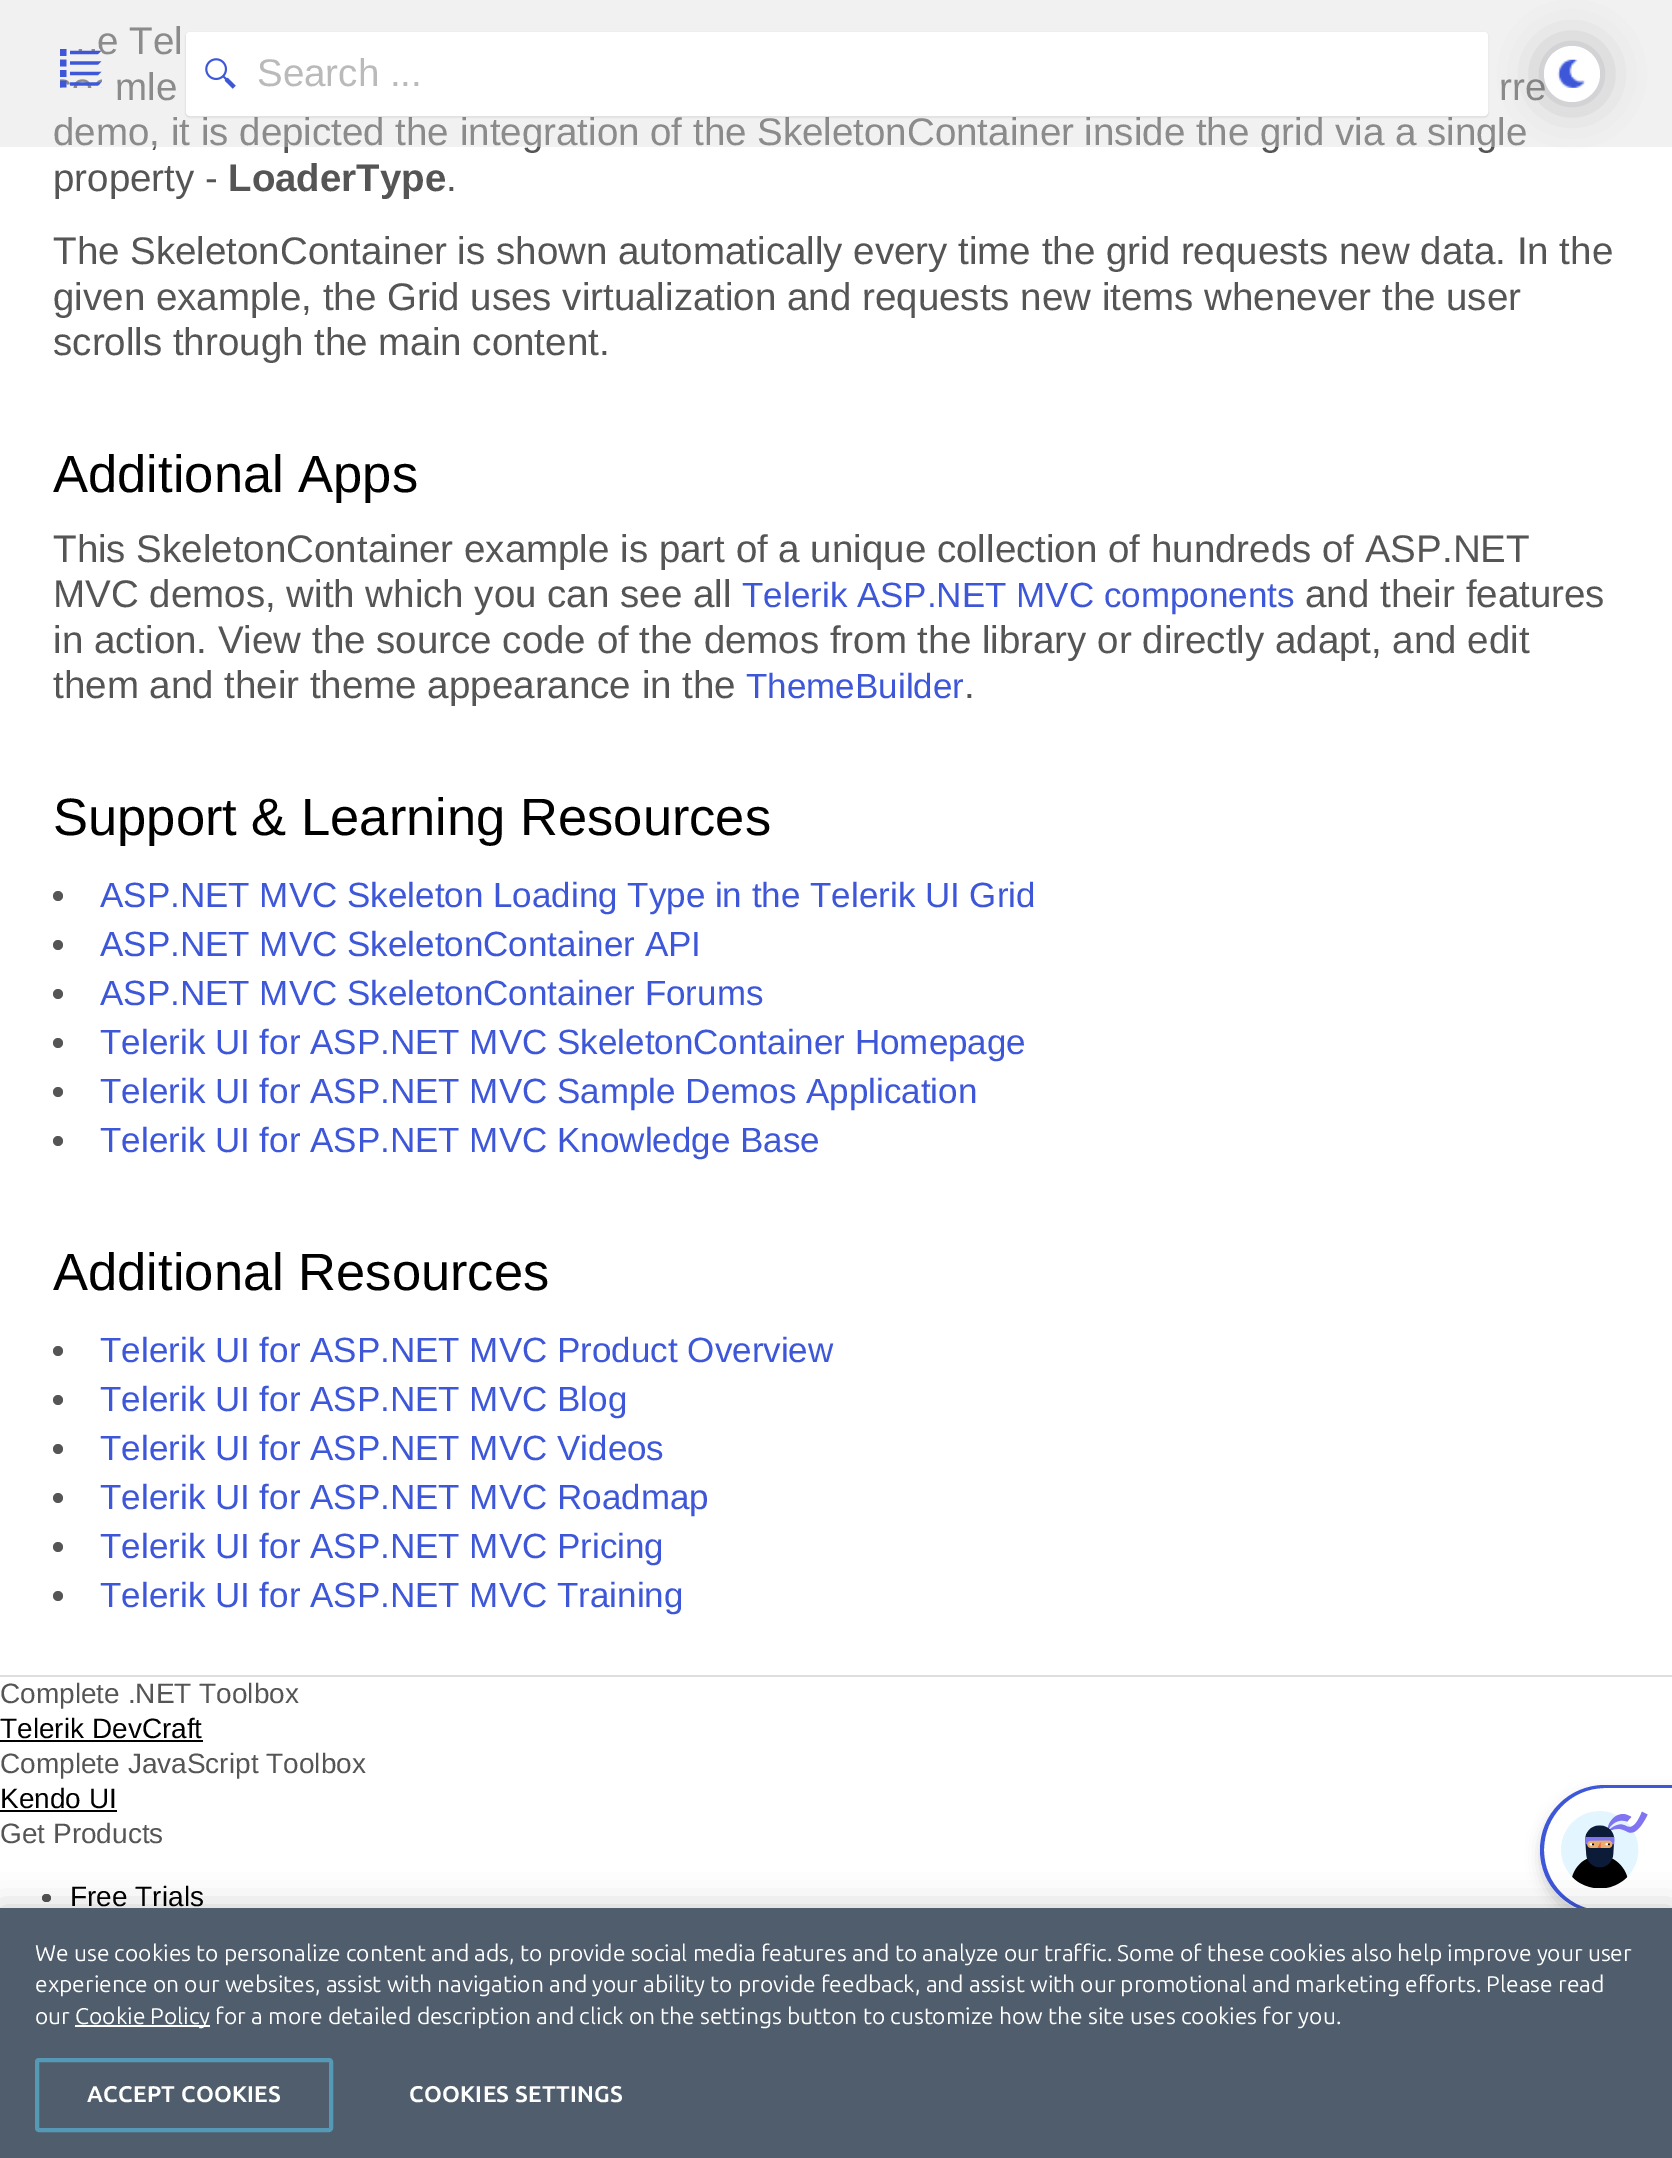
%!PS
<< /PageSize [1672 2158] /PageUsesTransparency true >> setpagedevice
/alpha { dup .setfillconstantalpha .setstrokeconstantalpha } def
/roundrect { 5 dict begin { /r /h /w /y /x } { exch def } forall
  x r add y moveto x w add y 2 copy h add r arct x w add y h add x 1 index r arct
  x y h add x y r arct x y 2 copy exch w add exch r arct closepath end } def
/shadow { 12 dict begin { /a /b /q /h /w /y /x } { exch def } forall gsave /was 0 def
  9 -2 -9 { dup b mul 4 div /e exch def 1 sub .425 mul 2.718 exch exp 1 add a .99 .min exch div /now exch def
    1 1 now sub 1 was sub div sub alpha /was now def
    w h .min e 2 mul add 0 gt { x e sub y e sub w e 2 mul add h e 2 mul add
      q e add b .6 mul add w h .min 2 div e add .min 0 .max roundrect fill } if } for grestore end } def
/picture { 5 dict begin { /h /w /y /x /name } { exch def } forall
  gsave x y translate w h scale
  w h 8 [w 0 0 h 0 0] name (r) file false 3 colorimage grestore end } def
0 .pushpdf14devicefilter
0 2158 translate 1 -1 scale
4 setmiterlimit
1 setgray
0 0 1672 2158 rectfill
/LiberationSans-Regular [38.5 0 0 -38.5 0 0] selectfont
0.333 setgray
97 54 moveto (e Tel) show
115 100 moveto (mle) show
1499 100 moveto (rre) show
53 145 moveto (demo, it is depicted the integration of the SkeletonContainer inside the grid via a single) show
53 191 moveto (property -) show
/LiberationSans-Bold [38.5 0 0 -38.5 0 0] selectfont
228 191 moveto (LoaderType) show
/LiberationSans-Regular [38.5 0 0 -38.5 0 0] selectfont
446 191 moveto (.) show
53 264 moveto (The SkeletonContainer is shown automatically every time the grid requests new data. In the) show
53 310 moveto (given example, the Grid uses virtualization and requests new items whenever the user) show
53 355 moveto (scrolls through the main content.) show
/LiberationSans-Regular [52.5 0 0 -52.5 0 0] selectfont
0 setgray
53 492 moveto (Additional Apps) show
/LiberationSans-Regular [38.5 0 0 -38.5 0 0] selectfont
0.333 setgray
53 562 moveto (This SkeletonContainer example is part of a unique collection of hundreds of ASP.NET) show
53 607 moveto (MVC demos, with which you can see all) show
/LiberationSans-Regular [35 0 0 -35 0 0] selectfont
0.239 0.341 0.847 setrgbcolor
742 607 moveto (Telerik ASP.NET MVC components) show
/LiberationSans-Regular [38.5 0 0 -38.5 0 0] selectfont
0.333 setgray
1305 607 moveto (and their features) show
53 653 moveto (in action. View the source code of the demos from the library or directly adapt, and edit) show
53 698 moveto (them and their theme appearance in the) show
/LiberationSans-Regular [35 0 0 -35 0 0] selectfont
0.239 0.341 0.847 setrgbcolor
746 698 moveto (ThemeBuilder) show
/LiberationSans-Regular [38.5 0 0 -38.5 0 0] selectfont
0.333 setgray
964 698 moveto (.) show
/LiberationSans-Regular [52.5 0 0 -52.5 0 0] selectfont
0 setgray
53 835 moveto (Support & Learning Resources) show
0.333 setgray
newpath 58 896 5 0 360 arc closepath fill
/LiberationSans-Regular [35 0 0 -35 0 0] selectfont
0.239 0.341 0.847 setrgbcolor
100 907 moveto (ASP.NET MVC Skeleton Loading Type in the Telerik UI Grid) show
0.333 setgray
newpath 58 945 5 0 360 arc closepath fill
0.239 0.341 0.847 setrgbcolor
100 956 moveto (ASP.NET MVC SkeletonContainer API) show
0.333 setgray
newpath 58 994 5 0 360 arc closepath fill
0.239 0.341 0.847 setrgbcolor
100 1005 moveto (ASP.NET MVC SkeletonContainer Forums) show
0.333 setgray
newpath 58 1043 5 0 360 arc closepath fill
0.239 0.341 0.847 setrgbcolor
100 1054 moveto (Telerik UI for ASP.NET MVC SkeletonContainer Homepage) show
0.333 setgray
newpath 58 1092 5 0 360 arc closepath fill
0.239 0.341 0.847 setrgbcolor
100 1103 moveto (Telerik UI for ASP.NET MVC Sample Demos Application) show
0.333 setgray
newpath 58 1141 5 0 360 arc closepath fill
0.239 0.341 0.847 setrgbcolor
100 1152 moveto (Telerik UI for ASP.NET MVC Knowledge Base) show
/LiberationSans-Regular [52.5 0 0 -52.5 0 0] selectfont
0 setgray
53 1290 moveto (Additional Resources) show
0.333 setgray
newpath 58 1351 5 0 360 arc closepath fill
/LiberationSans-Regular [35 0 0 -35 0 0] selectfont
0.239 0.341 0.847 setrgbcolor
100 1362 moveto (Telerik UI for ASP.NET MVC Product Overview) show
0.333 setgray
newpath 58 1400 5 0 360 arc closepath fill
0.239 0.341 0.847 setrgbcolor
100 1411 moveto (Telerik UI for ASP.NET MVC Blog) show
0.333 setgray
newpath 58 1449 5 0 360 arc closepath fill
0.239 0.341 0.847 setrgbcolor
100 1460 moveto (Telerik UI for ASP.NET MVC Videos) show
0.333 setgray
newpath 58 1498 5 0 360 arc closepath fill
0.239 0.341 0.847 setrgbcolor
100 1509 moveto (Telerik UI for ASP.NET MVC Roadmap) show
0.333 setgray
newpath 58 1547 5 0 360 arc closepath fill
0.239 0.341 0.847 setrgbcolor
100 1558 moveto (Telerik UI for ASP.NET MVC Pricing) show
0.333 setgray
newpath 58 1596 5 0 360 arc closepath fill
0.239 0.341 0.847 setrgbcolor
100 1607 moveto (Telerik UI for ASP.NET MVC Training) show
0.871 setgray
0 1675 1672 2 rectfill
/LiberationSans-Regular [28 0 0 -28 0 0] selectfont
0.333 setgray
0 1703 moveto (Complete .NET Toolbox) show
0 setgray
0 1738 moveto (Telerik DevCraft) show
0 1740 203 2 rectfill
0.333 setgray
0 1773 moveto (Complete JavaScript Toolbox) show
0 setgray
0 1808 moveto (Kendo UI) show
0 1810 117 2 rectfill
0.333 setgray
0 1843 moveto (Get Products) show
42 1894 9 8 4 roundrect fill
0 setgray
70 1906 moveto (Free Trials) show
0.4 alpha
0.859 setgray
0 0 1672 147 rectfill
1 alpha
(img1.rgb) 60 49 42 39 picture
0 setgray
186 33 1302 84 4 1 0.15 shadow
0.353 0.369 0.4 setrgbcolor
1544 46 56 56 28 21 0.4 shadow
1 setgray
187 33 1300 82 3 roundrect gsave fill grestore
2 setlinewidth
stroke
(img2.rgb) 205 58 31 31 picture
/LiberationSans-Regular [38.5 0 0 -38.5 0 0] selectfont
0.729 setgray
257 86 moveto (Search ...) show
1 setgray
newpath 1572 74 28 0 360 arc closepath fill
(img3.rgb) 1557 59 29 29 picture
0 setgray
1540 1792 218 130 65 7 0.16 shadow
1 setgray
newpath 1605 1785 moveto 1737 1785 lineto 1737 1915 lineto 1605 1915 lineto 1569 1915 1540 1886 1540 1850 curveto 1540 1814 1569 1785 1605 1785 curveto closepath fill
0.239 0.341 0.847 setrgbcolor
newpath 1605 1785 moveto 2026 1785 lineto 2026 1914 lineto 1605 1914 lineto 1569 1914 1540 1886 1540 1850 curveto 1540 1814 1569 1785 1605 1785 curveto closepath 1605 1788 moveto 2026 1788 lineto 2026 1911 lineto 1605 1911 lineto 1571 1911 1544 1884 1544 1850 curveto 1544 1816 1571 1788 1605 1788 curveto closepath eofill
(img4.rgb) 1561 1811 87 78 picture
0 setgray
0 1908 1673 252 0 16 0.2 shadow
0.31 0.365 0.424 setrgbcolor
0 1908 1672 250 rectfill
/Ubuntu-Regular [22.75 0 0 -22.75 0 0] selectfont
1 setgray
35 1961 moveto (We use cookies to personalize content and ads, to provide social media features and to analyze our traffic. Some of these cookies also help improve your user) show
35 1992 moveto (experience on our websites, assist with navigation and your ability to provide feedback, and assist with our promotional and marketing efforts. Please read) show
35 2024 moveto (our) show
75 2025 135 2 rectfill
75 2024 moveto (Cookie Policy for a more detailed description and click on the settings button to customize how the site uses cookies for you.) show
0.337 0.6 0.714 setrgbcolor
4 setlinewidth
37 2060 294 70 2 roundrect stroke
/Ubuntu-Bold [22.75 0 0 -22.75 0 0] selectfont
1 setgray
87 2102 moveto 0.25 0 (ACCEPT COOKIES) ashow
409 2102 moveto 0.25 0 (COOKIES SETTINGS) ashow
.poppdf14devicefilter showpage
